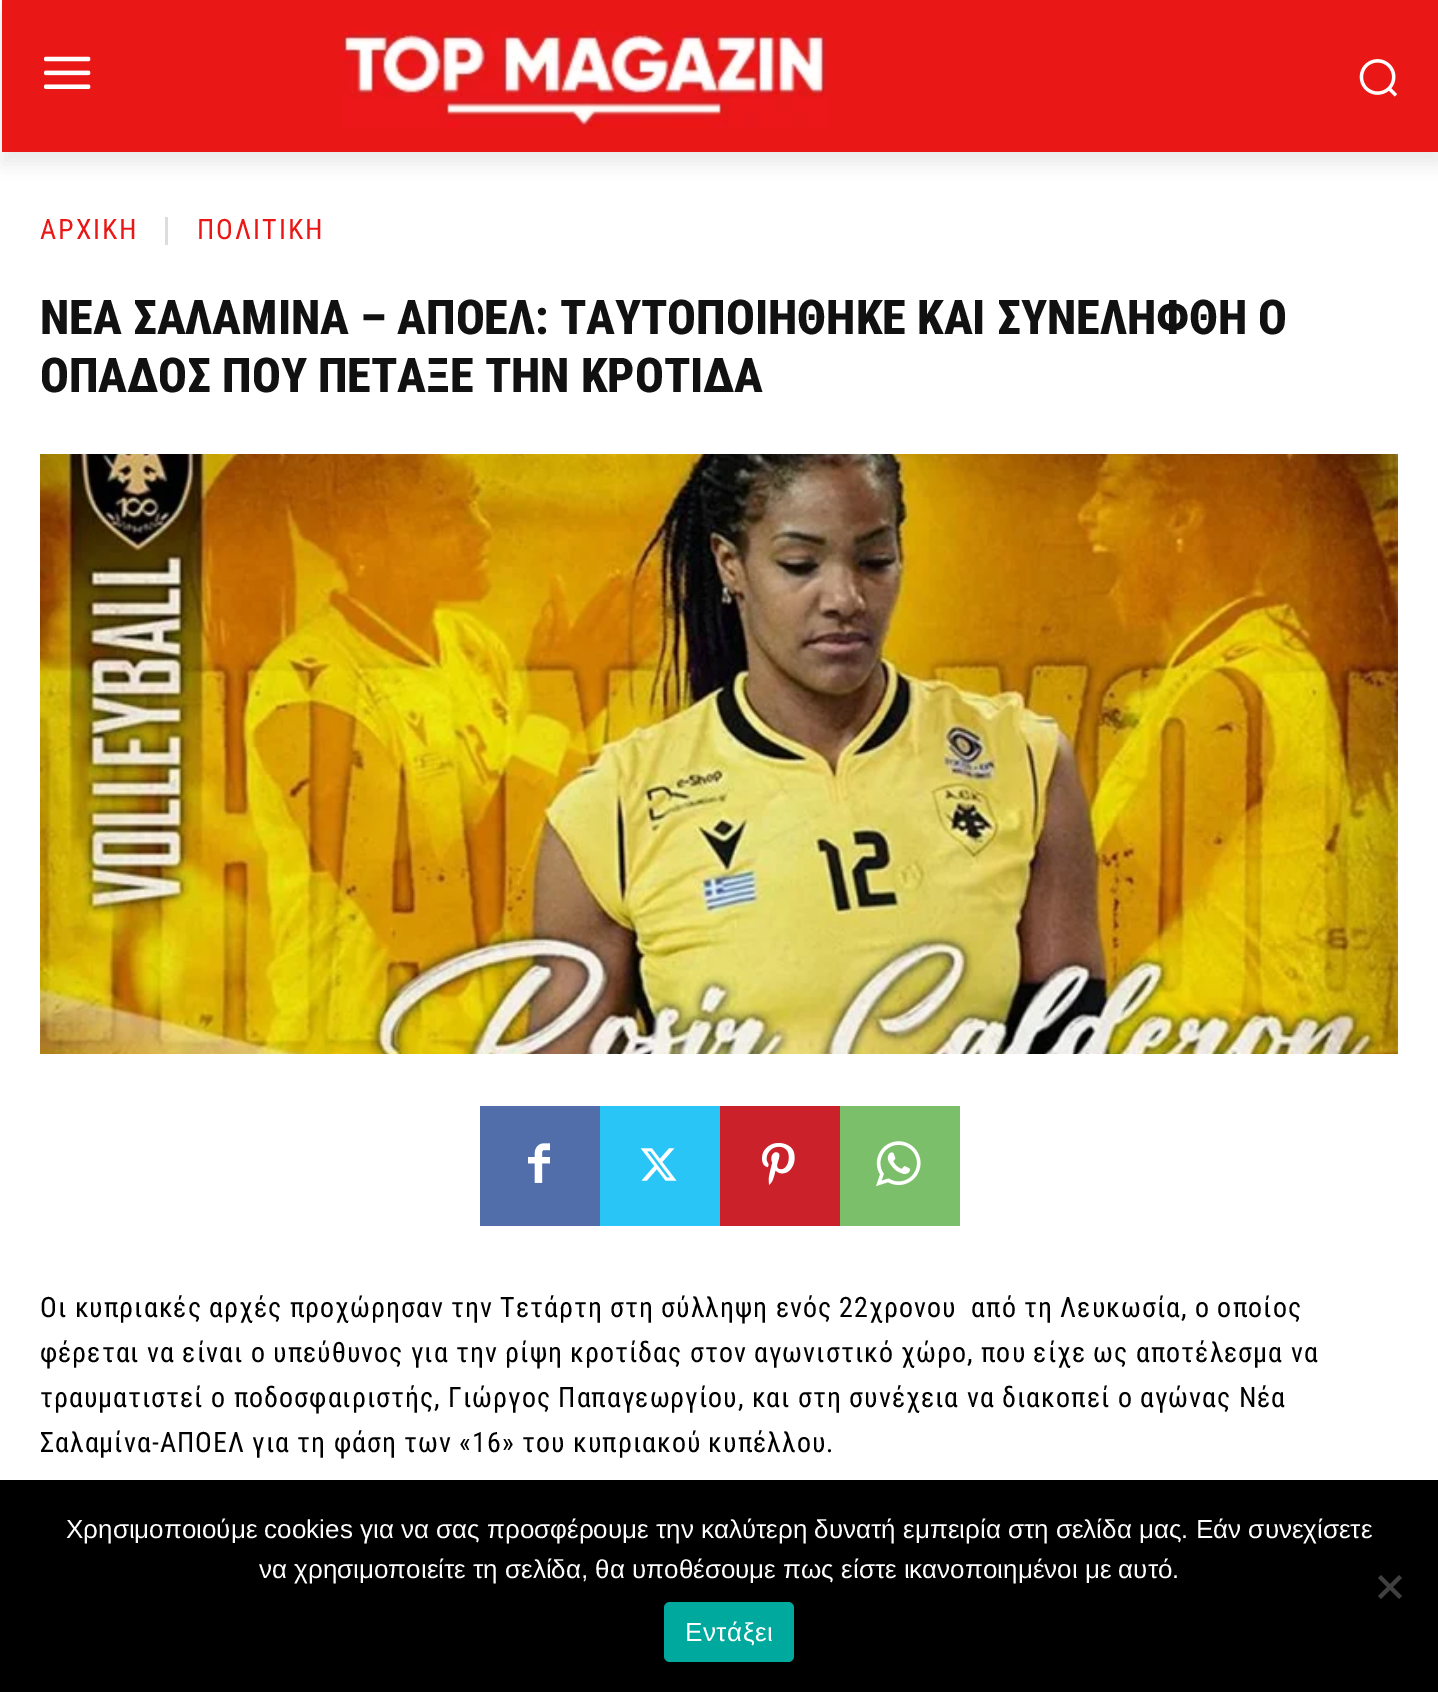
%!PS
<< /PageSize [1438 1692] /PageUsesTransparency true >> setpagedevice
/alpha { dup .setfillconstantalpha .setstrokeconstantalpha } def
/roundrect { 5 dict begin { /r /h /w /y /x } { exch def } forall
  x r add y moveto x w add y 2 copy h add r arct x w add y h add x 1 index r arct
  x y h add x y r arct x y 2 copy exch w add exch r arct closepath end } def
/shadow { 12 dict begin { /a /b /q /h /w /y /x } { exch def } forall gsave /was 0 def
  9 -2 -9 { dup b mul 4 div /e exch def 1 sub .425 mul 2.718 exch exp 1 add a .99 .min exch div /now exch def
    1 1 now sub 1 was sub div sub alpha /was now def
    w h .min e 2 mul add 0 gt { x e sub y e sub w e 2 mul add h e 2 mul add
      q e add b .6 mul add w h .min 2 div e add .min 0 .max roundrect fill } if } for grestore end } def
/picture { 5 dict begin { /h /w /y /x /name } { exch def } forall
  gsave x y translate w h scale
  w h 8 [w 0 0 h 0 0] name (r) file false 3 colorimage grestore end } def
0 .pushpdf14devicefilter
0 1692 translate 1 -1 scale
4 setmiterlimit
1 setgray
0 0 1438 1692 rectfill
0.918 0.09 0.09 setrgbcolor
2 0 1436 152 rectfill
(img1.rgb) 44 56 47 33 picture
(img2.rgb) 342 30 485 98 picture
(img3.rgb) 1359 59 39 38 picture
gsave
newpath 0 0 moveto 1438 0 lineto 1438 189 lineto 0 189 lineto closepath 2 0 moveto 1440 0 lineto 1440 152 lineto 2 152 lineto closepath eoclip newpath
0 setgray
2 12 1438 152 0 8 0.08 shadow
grestore
/RobotoCondensed-Regular [28 0 0 -28 0 0] selectfont
40 239 moveto 2 0 (ΑΡΧΙΚΗ) ashow
0.867 setgray
165 217 3 28 rectfill
0.918 0.09 0.09 setrgbcolor
197 239 moveto 2 0 (ΠΟΛΙΤΙΚΗ) ashow
/RobotoCondensed-ExtraBold [48 0 0 -48 0 0] selectfont
0.067 setgray
40 334 moveto (ΝΕΑ ΣΑΛΑΜΙΝΑ – ΑΠΟΕΛ: ΤΑΥΤΟΠΟΙΗΘΗΚΕ ΚΑΙ ΣΥΝΕΛΗΦΘΗ Ο) show
40 392 moveto (ΟΠΑΔΟΣ ΠΟΥ ΠΕΤΑΞΕ ΤΗΝ ΚΡΟΤΙΔΑ) show
(img4.rgb) 40 454 1358 600 picture
0.318 0.431 0.671 setrgbcolor
480 1106 120 120 rectfill
(img5.rgb) 528 1143 22 40 picture
0.161 0.773 0.965 setrgbcolor
600 1106 120 120 rectfill
(img6.rgb) 640 1148 37 33 picture
0.792 0.129 0.165 setrgbcolor
720 1106 120 120 rectfill
(img7.rgb) 762 1142 33 43 picture
0.482 0.749 0.416 setrgbcolor
840 1106 120 120 rectfill
(img8.rgb) 876 1141 45 46 picture
/RobotoCondensed-Regular [28 0 0 -28 0 0] selectfont
0 setgray
40 1317 moveto 1 0 (Οι κυπριακές αρχές προχώρησαν την Τετάρτη στη σύλληψη ενός 22χρονου  από τη Λευκωσία, ο οποίος) ashow
40 1362 moveto 1 0 (φέρεται να είναι ο υπεύθυνος για την ρίψη κροτίδας στον αγωνιστικό χώρο, που είχε ως αποτέλεσμα να) ashow
40 1407 moveto 1 0 (τραυματιστεί ο ποδοσφαιριστής, Γιώργος Παπαγεωργίου, και στη συνέχεια να διακοπεί ο αγώνας Νέα) ashow
40 1452 moveto 1 0 (Σαλαμίνα-ΑΠΟΕΛ για τη φάση των «16» του κυπριακού κυπέλλου.) ashow
0 1480 1438 212 rectfill
/LiberationSans-Regular [26 0 0 -26 0 0] selectfont
1 setgray
66 1538 moveto (Χρησιμοποιούμε cookies για να σας προσφέρουμε την καλύτερη δυνατή εμπειρία στη σελίδα μας. Εάν συνεχίσετε) show
259 1578 moveto (να χρησιμοποιείτε τη σελίδα, θα υποθέσουμε πως είστε ικανοποιημένοι με αυτό.) show
0.251 setgray
newpath 1399 1575 moveto 1402 1578 lineto 1381 1599 lineto 1378 1596 lineto closepath fill
newpath 1378 1578 moveto 1381 1575 lineto 1402 1596 lineto 1399 1599 lineto closepath fill
0 0.663 0.616 setrgbcolor
664 1602 130 60 6 roundrect fill
1 setgray
685 1641 moveto 0.5 0 (Εντάξει) ashow
.poppdf14devicefilter showpage
